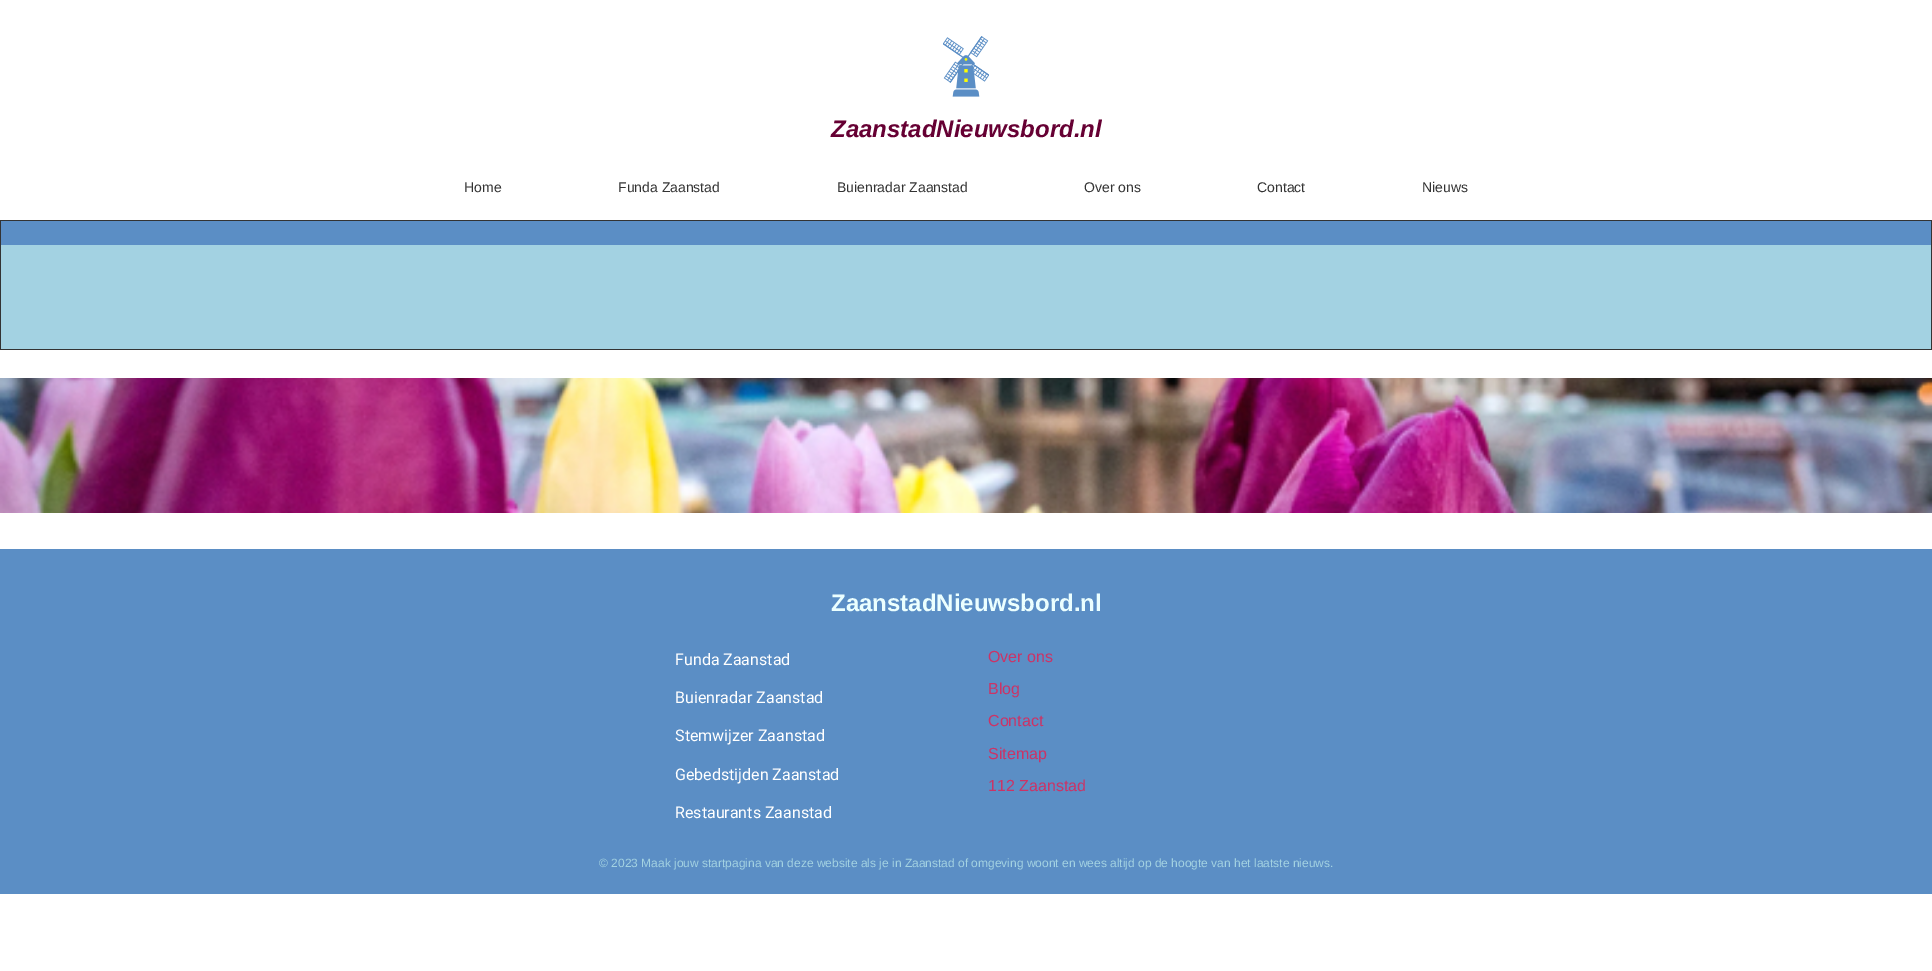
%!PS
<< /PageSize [1932 971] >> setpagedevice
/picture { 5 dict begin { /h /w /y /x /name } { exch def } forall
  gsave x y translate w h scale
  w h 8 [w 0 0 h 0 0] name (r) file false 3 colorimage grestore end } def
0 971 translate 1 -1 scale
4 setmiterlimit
1 setgray
0 0 1932 971 rectfill
(img1.rgb) 943 36 46 61 picture
/LiberationSans-BoldItalic [24 0 0 -24 0 0] selectfont
0.4 0 0.2 setrgbcolor
831 137 moveto (ZaanstadNieuwsbord.nl) show
/LiberationSans-Regular [14 0 0 -14 0 0] selectfont
0.2 setgray
464 192 moveto (Home) show
618 192 moveto (Funda Zaanstad) show
837 192 moveto (Buienradar Zaanstad) show
1084 192 moveto (Over ons) show
1257 192 moveto (Contact) show
1422 192 moveto (Nieuws) show
0.357 0.557 0.773 setrgbcolor
1 221 1930 24 rectfill
0.2 setgray
0 220 1932 1 rectfill
1931 220 1 130 rectfill
0 220 1 25 rectfill
0.639 0.824 0.886 setrgbcolor
1 245 1930 104 rectfill
0.2 setgray
0 349 1932 1 rectfill
0 245 1 105 rectfill
(img2.rgb) 0 378 1932 135 picture
0.357 0.557 0.773 setrgbcolor
0 549 1932 345 rectfill
/LiberationSans-Bold [24 0 0 -24 0 0] selectfont
0.922 1 1 setrgbcolor
831 611 moveto (ZaanstadNieuwsbord.nl) show
/Roboto-Regular [16 0 0 -16 0 0] selectfont
1 setgray
675 665 moveto (Funda Zaanstad) show
675 703 moveto (Buienradar Zaanstad) show
675 741 moveto (Stemwijzer Zaanstad) show
675 780 moveto (Gebedstijden Zaanstad) show
675 818 moveto (Restaurants Zaanstad) show
/LiberationSans-Regular [16 0 0 -16 0 0] selectfont
0.8 0.2 0.4 setrgbcolor
988 662 moveto (Over ons) show
988 694 moveto (Blog) show
988 726 moveto (Contact) show
988 759 moveto (Sitemap) show
988 791 moveto (112 Zaanstad) show
/LiberationSans-Regular [12 0 0 -12 0 0] selectfont
0.639 0.824 0.886 setrgbcolor
599 867 moveto (© 2023 Maak jouw startpagina van deze website als je in Zaanstad of omgeving woont en wees altijd op de hoogte van het laatste nieuws.) show
showpage
